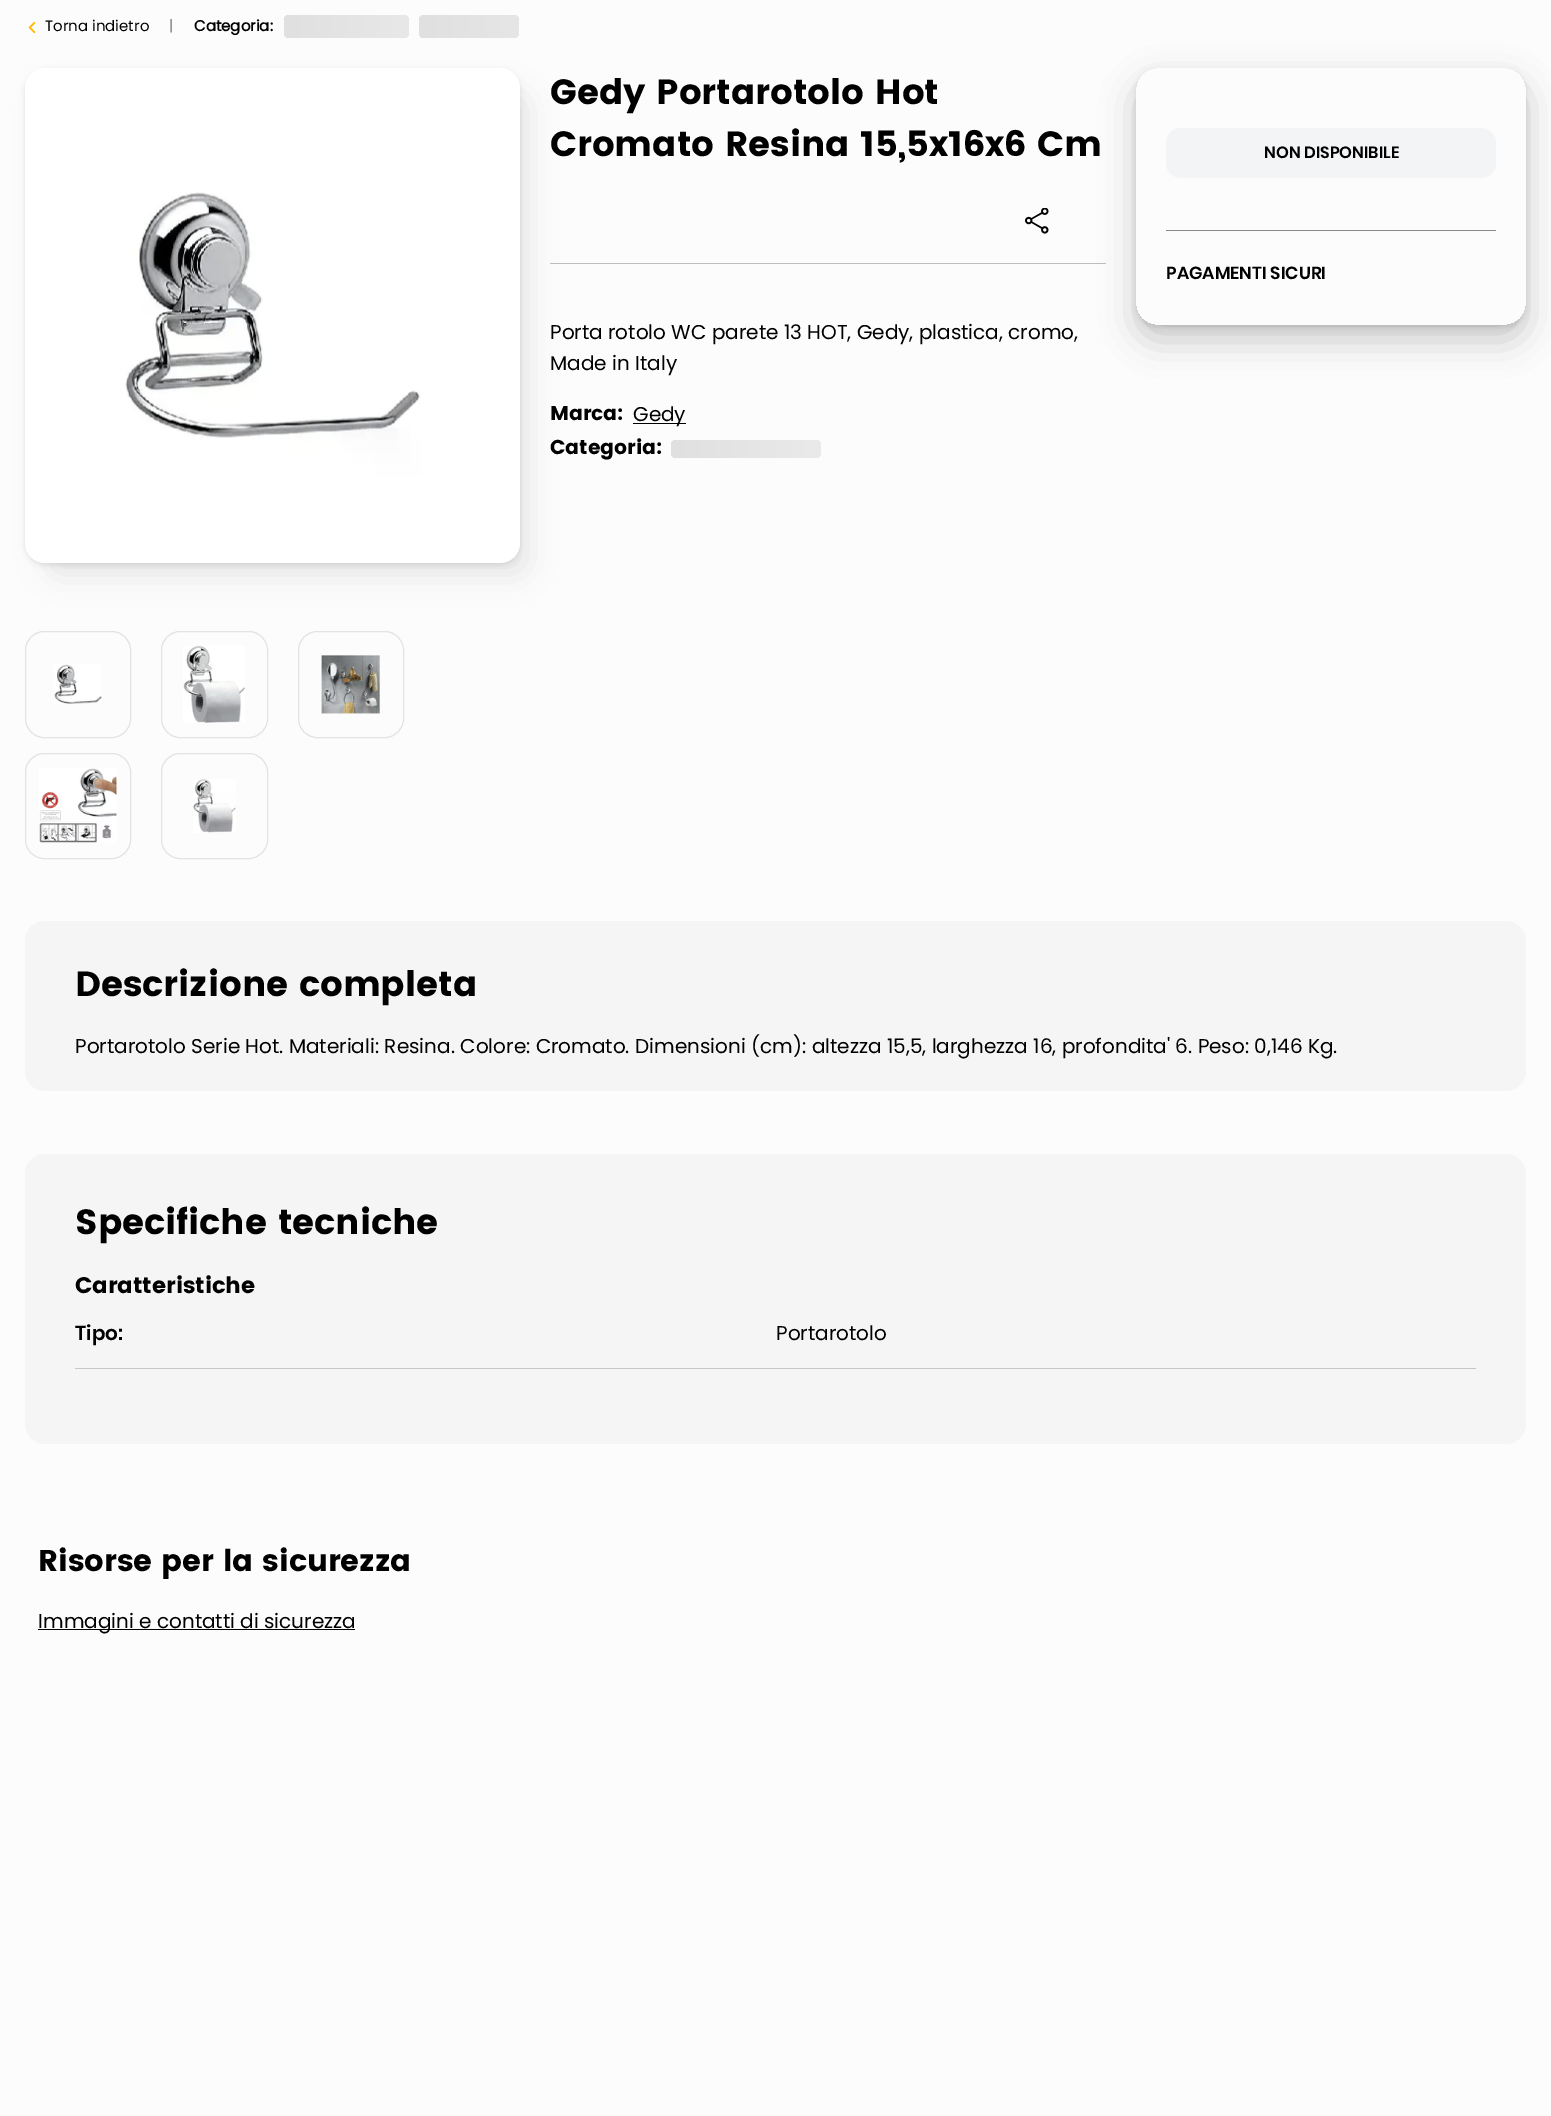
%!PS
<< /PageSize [1551 2116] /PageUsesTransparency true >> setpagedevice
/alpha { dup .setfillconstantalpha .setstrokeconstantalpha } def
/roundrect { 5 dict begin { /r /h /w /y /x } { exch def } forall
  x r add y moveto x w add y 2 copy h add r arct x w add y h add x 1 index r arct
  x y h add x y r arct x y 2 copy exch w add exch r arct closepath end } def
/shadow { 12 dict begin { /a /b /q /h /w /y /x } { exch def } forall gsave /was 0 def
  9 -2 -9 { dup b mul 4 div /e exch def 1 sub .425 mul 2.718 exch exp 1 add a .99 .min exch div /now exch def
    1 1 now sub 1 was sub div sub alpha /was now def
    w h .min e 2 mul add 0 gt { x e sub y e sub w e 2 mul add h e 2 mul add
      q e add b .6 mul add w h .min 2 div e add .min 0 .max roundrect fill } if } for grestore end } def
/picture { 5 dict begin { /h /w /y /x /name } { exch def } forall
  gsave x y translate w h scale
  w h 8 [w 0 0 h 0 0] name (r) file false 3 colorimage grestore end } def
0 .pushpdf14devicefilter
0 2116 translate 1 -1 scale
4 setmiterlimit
0.988 setgray
0 0 1551 2116 rectfill
(img1.rgb) 28 21 8 13 picture
/Poppins-Regular [15 0 0 -15 0 0] selectfont
0 setgray
45 31 moveto (Torna indietro) show
0.439 setgray
169 31 moveto (|) show
/Poppins-Bold [15 0 0 -15 0 0] selectfont
0 setgray
194 31 moveto (Categoria:) show
gsave 284 15 125 23 5 roundrect clip newpath
<< /ShadingType 2 /ColorSpace /DeviceRGB /Coords [284 26 1534 26] /Extend [true true] /Function << /FunctionType 3 /Domain [0 1] /Functions [<< /FunctionType 2 /Domain [0 1] /C0 [0.878 0.878 0.878] /C1 [0.941 0.941 0.941] /N 1 >> << /FunctionType 2 /Domain [0 1] /C0 [0.941 0.941 0.941] /C1 [0.878 0.878 0.878] /N 1 >> << /FunctionType 2 /Domain [0 1] /C0 [0.878 0.878 0.878] /C1 [0.878 0.878 0.878] /N 1 >>] /Bounds [0.2 0.4] /Encode [0 1 0 1 0 1] >> >> shfill grestore
gsave 419 15 100 23 5 roundrect clip newpath
<< /ShadingType 2 /ColorSpace /DeviceRGB /Coords [419 26 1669 26] /Extend [true true] /Function << /FunctionType 3 /Domain [0 1] /Functions [<< /FunctionType 2 /Domain [0 1] /C0 [0.878 0.878 0.878] /C1 [0.941 0.941 0.941] /N 1 >> << /FunctionType 2 /Domain [0 1] /C0 [0.941 0.941 0.941] /C1 [0.878 0.878 0.878] /N 1 >> << /FunctionType 2 /Domain [0 1] /C0 [0.878 0.878 0.878] /C1 [0.878 0.878 0.878] /N 1 >>] /Bounds [0.2 0.4] /Encode [0 1 0 1 0 1] >> >> shfill grestore
25 70 495 495 20 2.5 0.1 shadow
0.741 setgray
550 263 556 1 rectfill
0 setgray
49 95 477 478 11 15.5 0.1 shadow
1 setgray
25 68 495 495 20 roundrect fill
(img2.rgb) 125 192 394 359 picture
0.89 setgray
25.5 631.5 105 106 18.5 roundrect stroke
(img3.rgb) 54 664 48 40 picture
161.5 631.5 106 106 18.5 roundrect stroke
(img4.rgb) 183 646 62 77 picture
298.5 631.5 105 106 18.5 roundrect stroke
(img5.rgb) 321 655 59 59 picture
25.5 753.5 105 105 18.5 roundrect stroke
(img6.rgb) 39 768 78 75 picture
161.5 753.5 106 105 18.5 roundrect stroke
(img7.rgb) 193 779 43 54 picture
/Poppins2-Bold [35 0 0 -35 0 0] selectfont
0 setgray
550 104 moveto (Gedy Portarotolo Hot) show
550 156 moveto (Cromato Resina 15,5x16x6 Cm) show
(img8.rgb) 1025 208 24 26 picture
/Poppins-Regular [20 0 0 -20 0 0] selectfont
550 339 moveto (Porta rotolo WC parete 13 HOT, Gedy, plastica, cromo,) show
550 370 moveto (Made in Italy) show
/Poppins2-Bold [20 0 0 -20 0 0] selectfont
550 420 moveto (Marca:) show
633 423 53 1 rectfill
/Poppins-Regular [20 0 0 -20 0 0] selectfont
633 421 moveto (Gedy) show
/Poppins2-Bold [20 0 0 -20 0 0] selectfont
550 454 moveto (Categoria:) show
gsave 671 440 150 18 5 roundrect clip newpath
<< /ShadingType 2 /ColorSpace /DeviceRGB /Coords [671 449 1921 449] /Extend [true true] /Function << /FunctionType 3 /Domain [0 1] /Functions [<< /FunctionType 2 /Domain [0 1] /C0 [0.878 0.878 0.878] /C1 [0.941 0.941 0.941] /N 1 >> << /FunctionType 2 /Domain [0 1] /C0 [0.941 0.941 0.941] /C1 [0.878 0.878 0.878] /N 1 >> << /FunctionType 2 /Domain [0 1] /C0 [0.878 0.878 0.878] /C1 [0.878 0.878 0.878] /N 1 >>] /Bounds [0.2 0.4] /Encode [0 1 0 1 0 1] >> >> shfill grestore
gsave
newpath 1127 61 moveto 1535 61 lineto 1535 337 lineto 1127 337 lineto closepath 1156 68 moveto 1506 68 lineto 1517 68 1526 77 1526 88 curveto 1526 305 lineto 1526 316 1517 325 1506 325 curveto 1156 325 lineto 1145 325 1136 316 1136 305 curveto 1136 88 lineto 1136 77 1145 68 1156 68 curveto closepath eoclip newpath
1136 70 390 258 20 2.5 0.1 shadow
grestore
gsave
newpath 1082 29 moveto 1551 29 lineto 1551 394 lineto 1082 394 lineto closepath 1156 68 moveto 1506 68 lineto 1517 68 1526 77 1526 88 curveto 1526 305 lineto 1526 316 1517 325 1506 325 curveto 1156 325 lineto 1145 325 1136 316 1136 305 curveto 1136 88 lineto 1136 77 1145 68 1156 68 curveto closepath eoclip newpath
1136 83 390 257 20 17.5 0.2 shadow
grestore
0.949 0.957 0.961 setrgbcolor
1166 128 330 50 15 roundrect fill
/Poppins-SemiBold [16.25 0 0 -16.25 0 0] selectfont
0 setgray
1264 158 moveto (NON DISPONIBILE) show
0.537 setgray
1166 230 330 1 rectfill
/Poppins-SemiBold [17.5 0 0 -17.5 0 0] selectfont
0 setgray
1166 279 moveto (PAGAMENTI SICURI) show
0.961 setgray
25 921 1501 170 20 roundrect fill
/Poppins2-Bold [35 0 0 -35 0 0] selectfont
0 setgray
75 996 moveto (Descrizione completa) show
/Poppins-Regular [20 0 0 -20 0 0] selectfont
75 1053 moveto (Portarotolo Serie Hot. Materiali: Resina. Colore: Cromato. Dimensioni \(cm\): altezza 15,5, larghezza 16, profondita' 6. Peso: 0,146 Kg.) show
0.961 setgray
25 1154 1501 290 20 roundrect fill
/Poppins2-Bold [35 0 0 -35 0 0] selectfont
0 setgray
75 1234 moveto (Specifiche tecniche) show
/Poppins2-Bold [22.5 0 0 -22.5 0 0] selectfont
75 1293 moveto (Caratteristiche) show
0.776 setgray
75 1368 1401 1 rectfill
/Poppins-SemiBold [20 0 0 -20 0 0] selectfont
0 setgray
75 1340 moveto (Tipo:) show
/Poppins-Regular [20 0 0 -20 0 0] selectfont
776 1340 moveto (Portarotolo) show
/Poppins2-Bold [30 0 0 -30 0 0] selectfont
38 1571 moveto (Risorse per la sicurezza) show
38 1629 317 1 rectfill
/Poppins-Regular [20 0 0 -20 0 0] selectfont
38 1628 moveto (Immagini e contatti di sicurezza) show
.poppdf14devicefilter showpage
